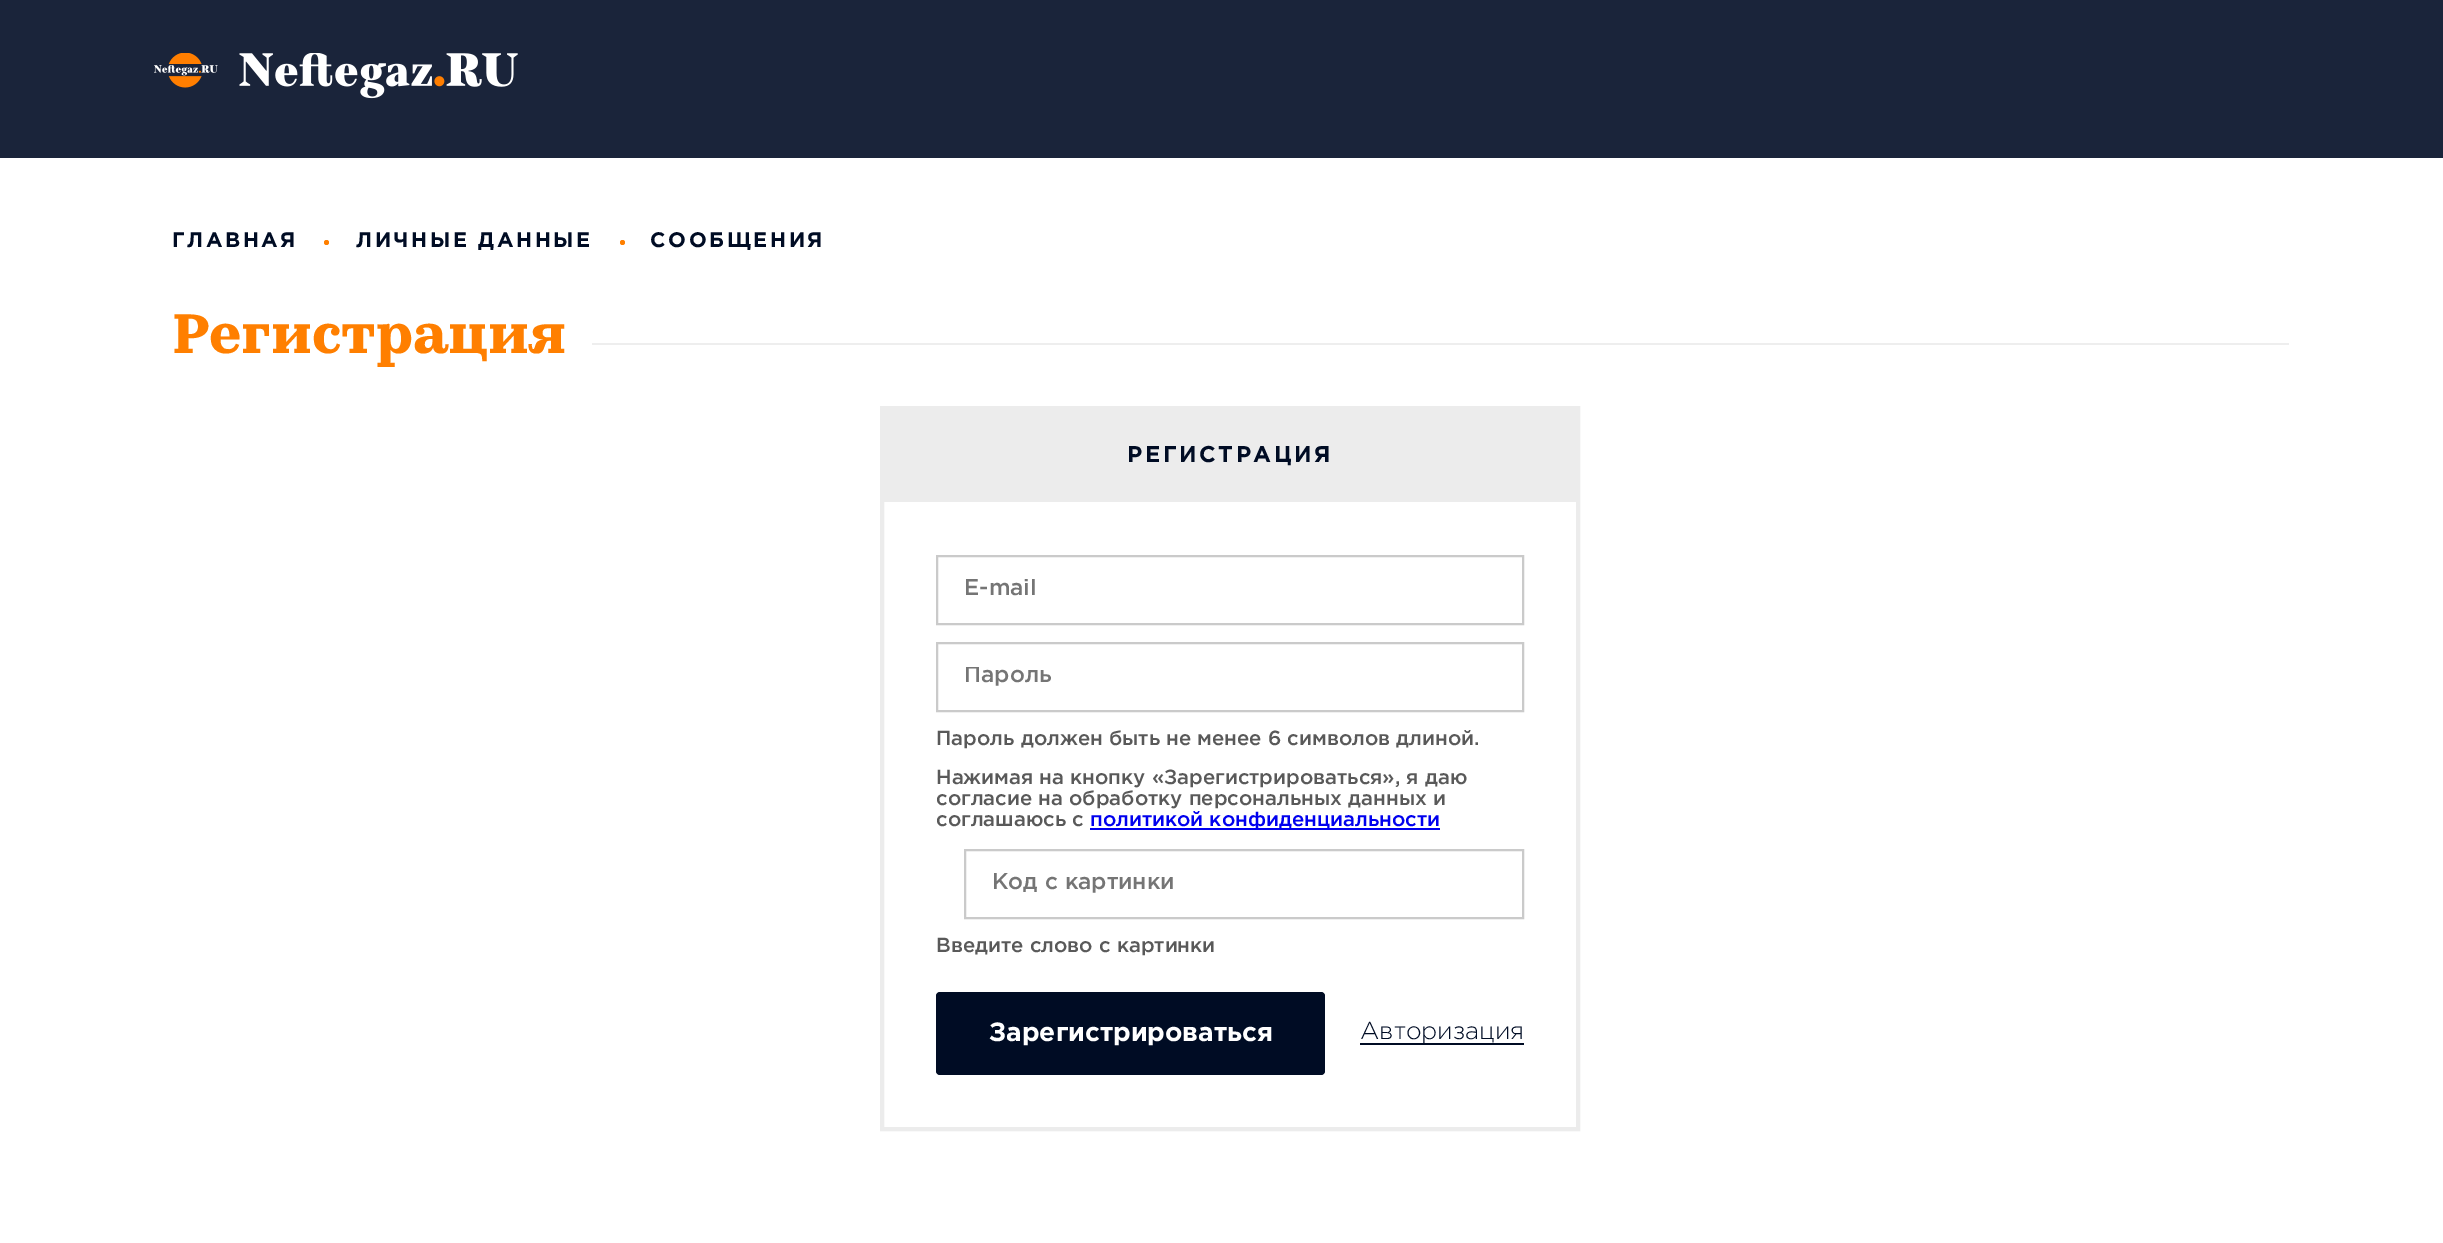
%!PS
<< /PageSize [2443 1243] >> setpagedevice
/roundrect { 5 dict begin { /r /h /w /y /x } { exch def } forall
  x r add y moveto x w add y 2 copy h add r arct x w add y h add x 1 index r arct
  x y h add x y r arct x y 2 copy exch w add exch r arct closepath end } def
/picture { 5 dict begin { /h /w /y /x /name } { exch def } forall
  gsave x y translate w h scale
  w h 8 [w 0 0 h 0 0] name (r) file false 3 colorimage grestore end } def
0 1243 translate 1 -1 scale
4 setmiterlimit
1 setgray
0 0 2443 1243 rectfill
0.102 0.141 0.227 setrgbcolor
0 0 2443 158 rectfill
(img1.rgb) 154 53 364 46 picture
/Gotham-Bold [21 0 0 -21 0 0] selectfont
0 0.047 0.141 setrgbcolor
172 247 moveto 2.6 0 (ГЛАВНАЯ) ashow
1 0.498 0 setrgbcolor
newpath 326.5 242.5 2.5 0 360 arc closepath fill
0 0.047 0.141 setrgbcolor
356 247 moveto 2.6 0 (ЛИЧНЫЕ ДАННЫЕ) ashow
1 0.498 0 setrgbcolor
newpath 622.5 242.5 2.5 0 360 arc closepath fill
0 0.047 0.141 setrgbcolor
650 247 moveto 2.6 0 (СООБЩЕНИЯ) ashow
/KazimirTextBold-Bold [56 0 0 -56 0 0] selectfont
1 0.498 0 setrgbcolor
172 353 moveto (Регистрация) show
0.933 setgray
592 343 1697 2 rectfill
0.925 setgray
4 setlinewidth
882 408 696 721 rectstroke
884 410 692 92 rectfill
/Gotham-Bold [22.75 0 0 -22.75 0 0] selectfont
0 0.047 0.141 setrgbcolor
1127 462 moveto 2.6 0 (РЕГИСТРАЦИЯ) ashow
0.792 setgray
2 setlinewidth
937 556 586 68 rectstroke
gsave
964 579 532 21 rectclip
/Gotham-Regular [22.75 0 0 -22.75 0 0] selectfont
0.459 setgray
964 595 moveto (E-mail) show
grestore
937 643 586 68 rectstroke
gsave
964 667 532 21 rectclip
/Gotham-Regular [22.75 0 0 -22.75 0 0] selectfont
0.459 setgray
964 682 moveto (Пароль) show
grestore
/Gotham-Regular [20.4 0 0 -20.4 0 0] selectfont
0.349 setgray
936 745 moveto (Пароль должен быть не менее 6 символов длиной.) show
936 784 moveto (Нажимая на кнопку «Зарегистрироваться», я даю) show
936 805 moveto (согласие на обработку персональных данных и) show
936 826 moveto (соглашаюсь c) show
0 0 0.933 setrgbcolor
1090 828 350 2 rectfill
1090 826 moveto (политикой конфиденциальности) show
0.792 setgray
965 850 558 68 rectstroke
/Gotham-Regular [22.75 0 0 -22.75 0 0] selectfont
0.459 setgray
992 889 moveto (Код с картинки) show
/Gotham-Regular [20.4 0 0 -20.4 0 0] selectfont
0.349 setgray
936 952 moveto (Введите слово с картинки) show
0 0.047 0.141 setrgbcolor
936 992 389 83 4 roundrect fill
/Gotham-Bold [26.25 0 0 -26.25 0 0] selectfont
1 setgray
989 1041 moveto (Зарегистрироваться) show
0 0.047 0.141 setrgbcolor
1360 1043 164 2 rectfill
/Gotham-Light [24.5 0 0 -24.5 0 0] selectfont
1360 1039 moveto (Авторизация) show
showpage
